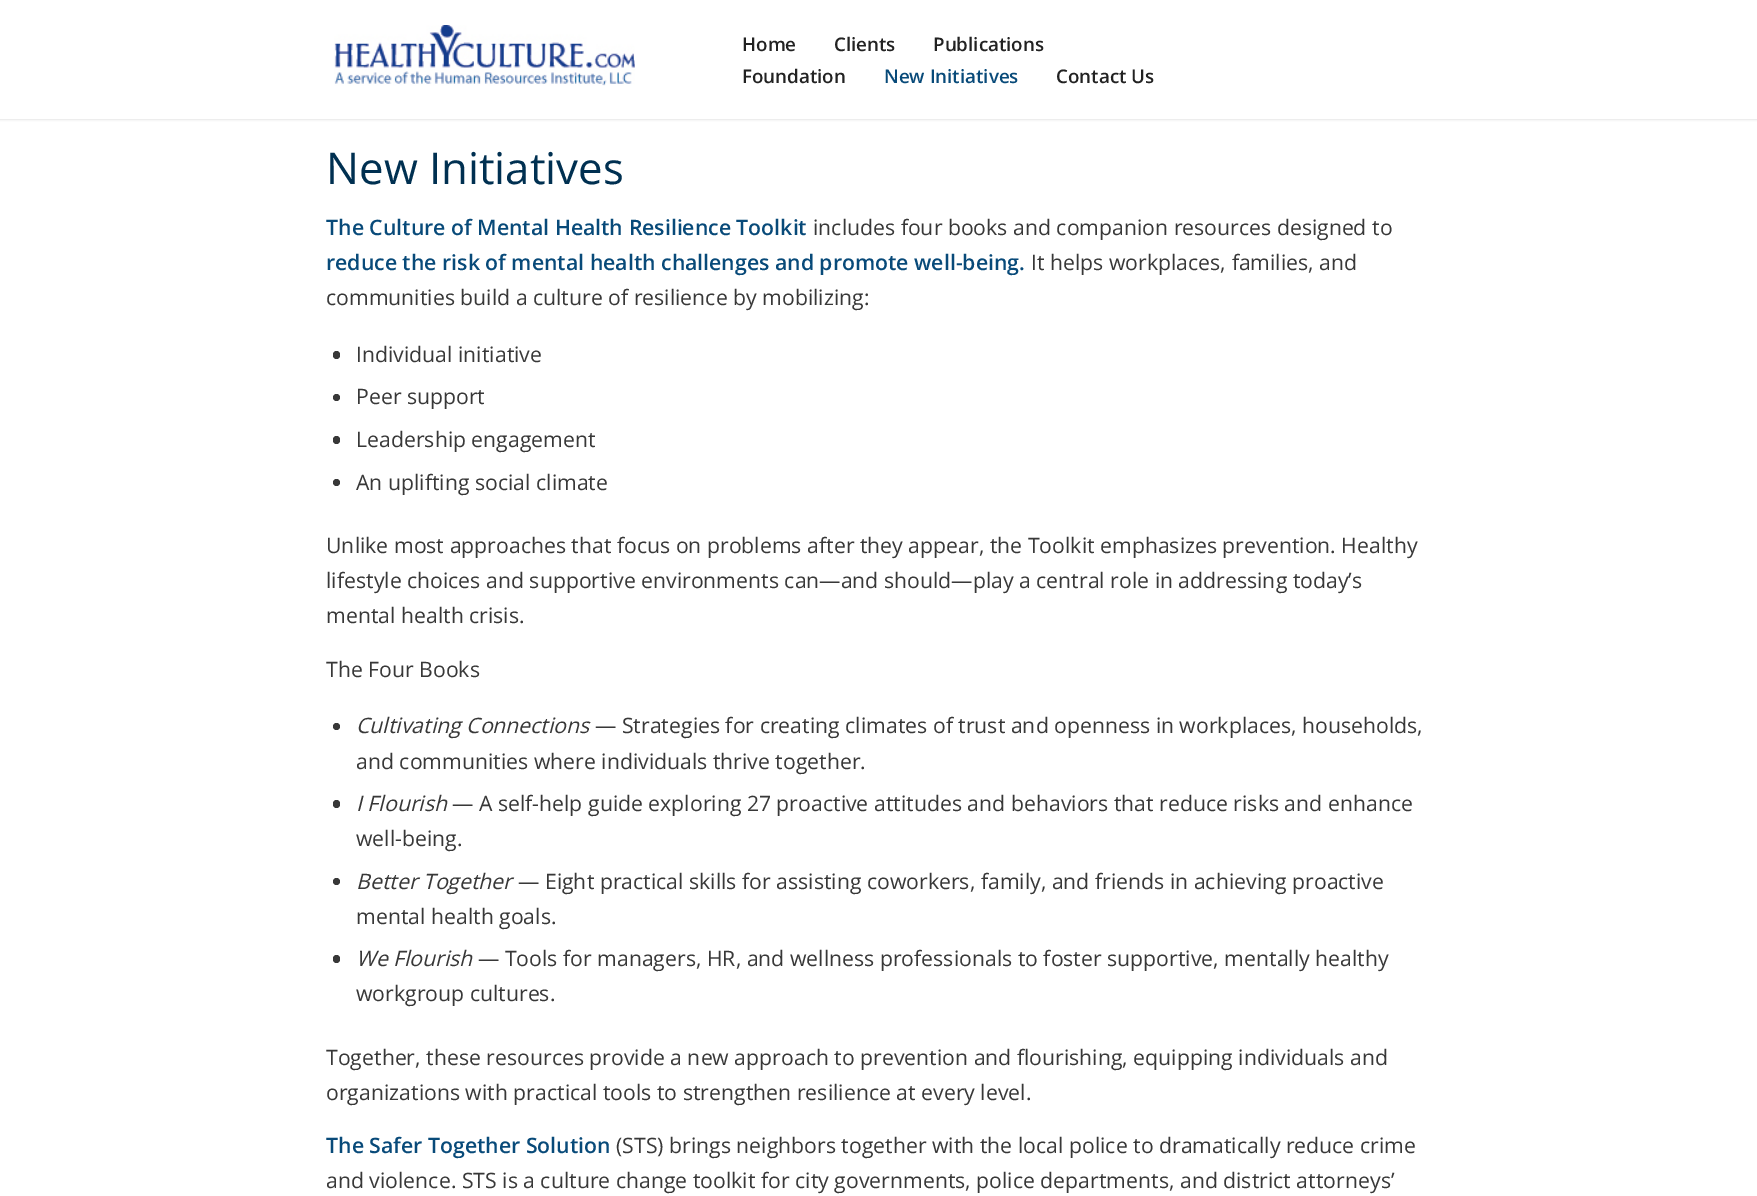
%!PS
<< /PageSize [1757 1196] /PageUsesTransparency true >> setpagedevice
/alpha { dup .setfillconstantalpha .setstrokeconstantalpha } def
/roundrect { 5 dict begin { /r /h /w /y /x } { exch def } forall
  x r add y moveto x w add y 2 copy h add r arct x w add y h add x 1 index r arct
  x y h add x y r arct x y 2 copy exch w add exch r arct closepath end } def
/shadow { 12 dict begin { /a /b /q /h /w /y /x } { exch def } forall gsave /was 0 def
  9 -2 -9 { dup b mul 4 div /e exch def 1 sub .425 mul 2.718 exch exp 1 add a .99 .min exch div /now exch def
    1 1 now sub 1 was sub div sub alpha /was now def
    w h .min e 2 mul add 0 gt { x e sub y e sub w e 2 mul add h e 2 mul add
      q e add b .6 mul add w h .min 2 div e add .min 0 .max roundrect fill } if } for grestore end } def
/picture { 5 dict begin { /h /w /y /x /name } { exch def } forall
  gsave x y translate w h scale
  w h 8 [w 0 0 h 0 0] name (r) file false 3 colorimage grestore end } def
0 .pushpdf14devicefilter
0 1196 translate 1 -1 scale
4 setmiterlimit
1 setgray
0 0 1757 1196 rectfill
0 setgray
-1 -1 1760 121 0 1 0.1 shadow
1 setgray
0 0 1757 119 rectfill
(img1.rgb) 334 25 301 61 picture
/OpenSans-SemiBold [18.75 0 0 -18.75 0 0] selectfont
0.133 setgray
742 51 moveto (Home) show
834 51 moveto (Clients) show
933 51 moveto (Publications) show
742 83 moveto (Foundation) show
0.031 0.29 0.475 setrgbcolor
884 83 moveto (New Initiatives) show
0.133 setgray
1056 83 moveto (Contact Us) show
/OpenSans-Regular [43.75 0 0 -43.75 0 0] selectfont
0 0.188 0.318 setrgbcolor
326 184 moveto (New Initiatives) show
/OpenSans-SemiBold [21.25 0 0 -21.25 0 0] selectfont
0.031 0.29 0.475 setrgbcolor
326 235 moveto (The Culture of Mental Health Resilience Toolkit) show
/OpenSans-Regular [21.25 0 0 -21.25 0 0] selectfont
0.22 setgray
813 235 moveto (includes four books and companion resources designed to) show
/OpenSans-SemiBold [21.25 0 0 -21.25 0 0] selectfont
0.031 0.29 0.475 setrgbcolor
326 270 moveto (reduce the risk of mental health challenges and promote well-being.) show
/OpenSans-Regular [21.25 0 0 -21.25 0 0] selectfont
0.22 setgray
1031 270 moveto (It helps workplaces, families, and) show
326 305 moveto (communities build a culture of resilience by mobilizing:) show
333 351 7 8 3.5 roundrect fill
356 362 moveto (Individual initiative) show
newpath 336.5 397.5 3.5 0 360 arc closepath fill
356 404 moveto (Peer support) show
333 436 7 8 3.5 roundrect fill
356 447 moveto (Leadership engagement) show
newpath 336.5 482.5 3.5 0 360 arc closepath fill
356 490 moveto (An uplifting social climate) show
326 553 moveto (Unlike most approaches that focus on problems after they appear, the Toolkit emphasizes prevention. Healthy) show
326 588 moveto (lifestyle choices and supportive environments can—and should—play a central role in addressing today’s) show
326 623 moveto (mental health crisis.) show
326 677 moveto (The Four Books) show
newpath 336.5 726.5 3.5 0 360 arc closepath fill
/OpenSans-Italic [21.25 0 0 -21.25 0 0] selectfont
356 733 moveto (Cultivating Connections) show
/OpenSans-Regular [21.25 0 0 -21.25 0 0] selectfont
595 733 moveto (— Strategies for creating climates of trust and openness in workplaces, households,) show
356 769 moveto (and communities where individuals thrive together.) show
333 800 7 8 3.5 roundrect fill
/OpenSans-Italic [21.25 0 0 -21.25 0 0] selectfont
356 811 moveto (I Flourish) show
/OpenSans-Regular [21.25 0 0 -21.25 0 0] selectfont
452 811 moveto (— A self-help guide exploring 27 proactive attitudes and behaviors that reduce risks and enhance) show
356 846 moveto (well-being.) show
newpath 336.5 881.5 3.5 0 360 arc closepath fill
/OpenSans-Italic [21.25 0 0 -21.25 0 0] selectfont
356 889 moveto (Better Together) show
/OpenSans-Regular [21.25 0 0 -21.25 0 0] selectfont
518 889 moveto (— Eight practical skills for assisting coworkers, family, and friends in achieving proactive) show
356 924 moveto (mental health goals.) show
333 955 7 8 3.5 roundrect fill
/OpenSans-Italic [21.25 0 0 -21.25 0 0] selectfont
356 966 moveto (We Flourish) show
/OpenSans-Regular [21.25 0 0 -21.25 0 0] selectfont
478 966 moveto (— Tools for managers, HR, and wellness professionals to foster supportive, mentally healthy) show
356 1001 moveto (workgroup cultures.) show
326 1065 moveto (Together, these resources provide a new approach to prevention and flourishing, equipping individuals and) show
326 1100 moveto (organizations with practical tools to strengthen resilience at every level.) show
/OpenSans-SemiBold [21.25 0 0 -21.25 0 0] selectfont
0.031 0.29 0.475 setrgbcolor
326 1153 moveto (The Safer Together Solution) show
/OpenSans-Regular [21.25 0 0 -21.25 0 0] selectfont
0.22 setgray
616 1153 moveto (\(STS\) brings neighbors together with the local police to dramatically reduce crime) show
326 1188 moveto (and violence. STS is a culture change toolkit for city governments, police departments, and district attorneys’) show
.poppdf14devicefilter showpage
